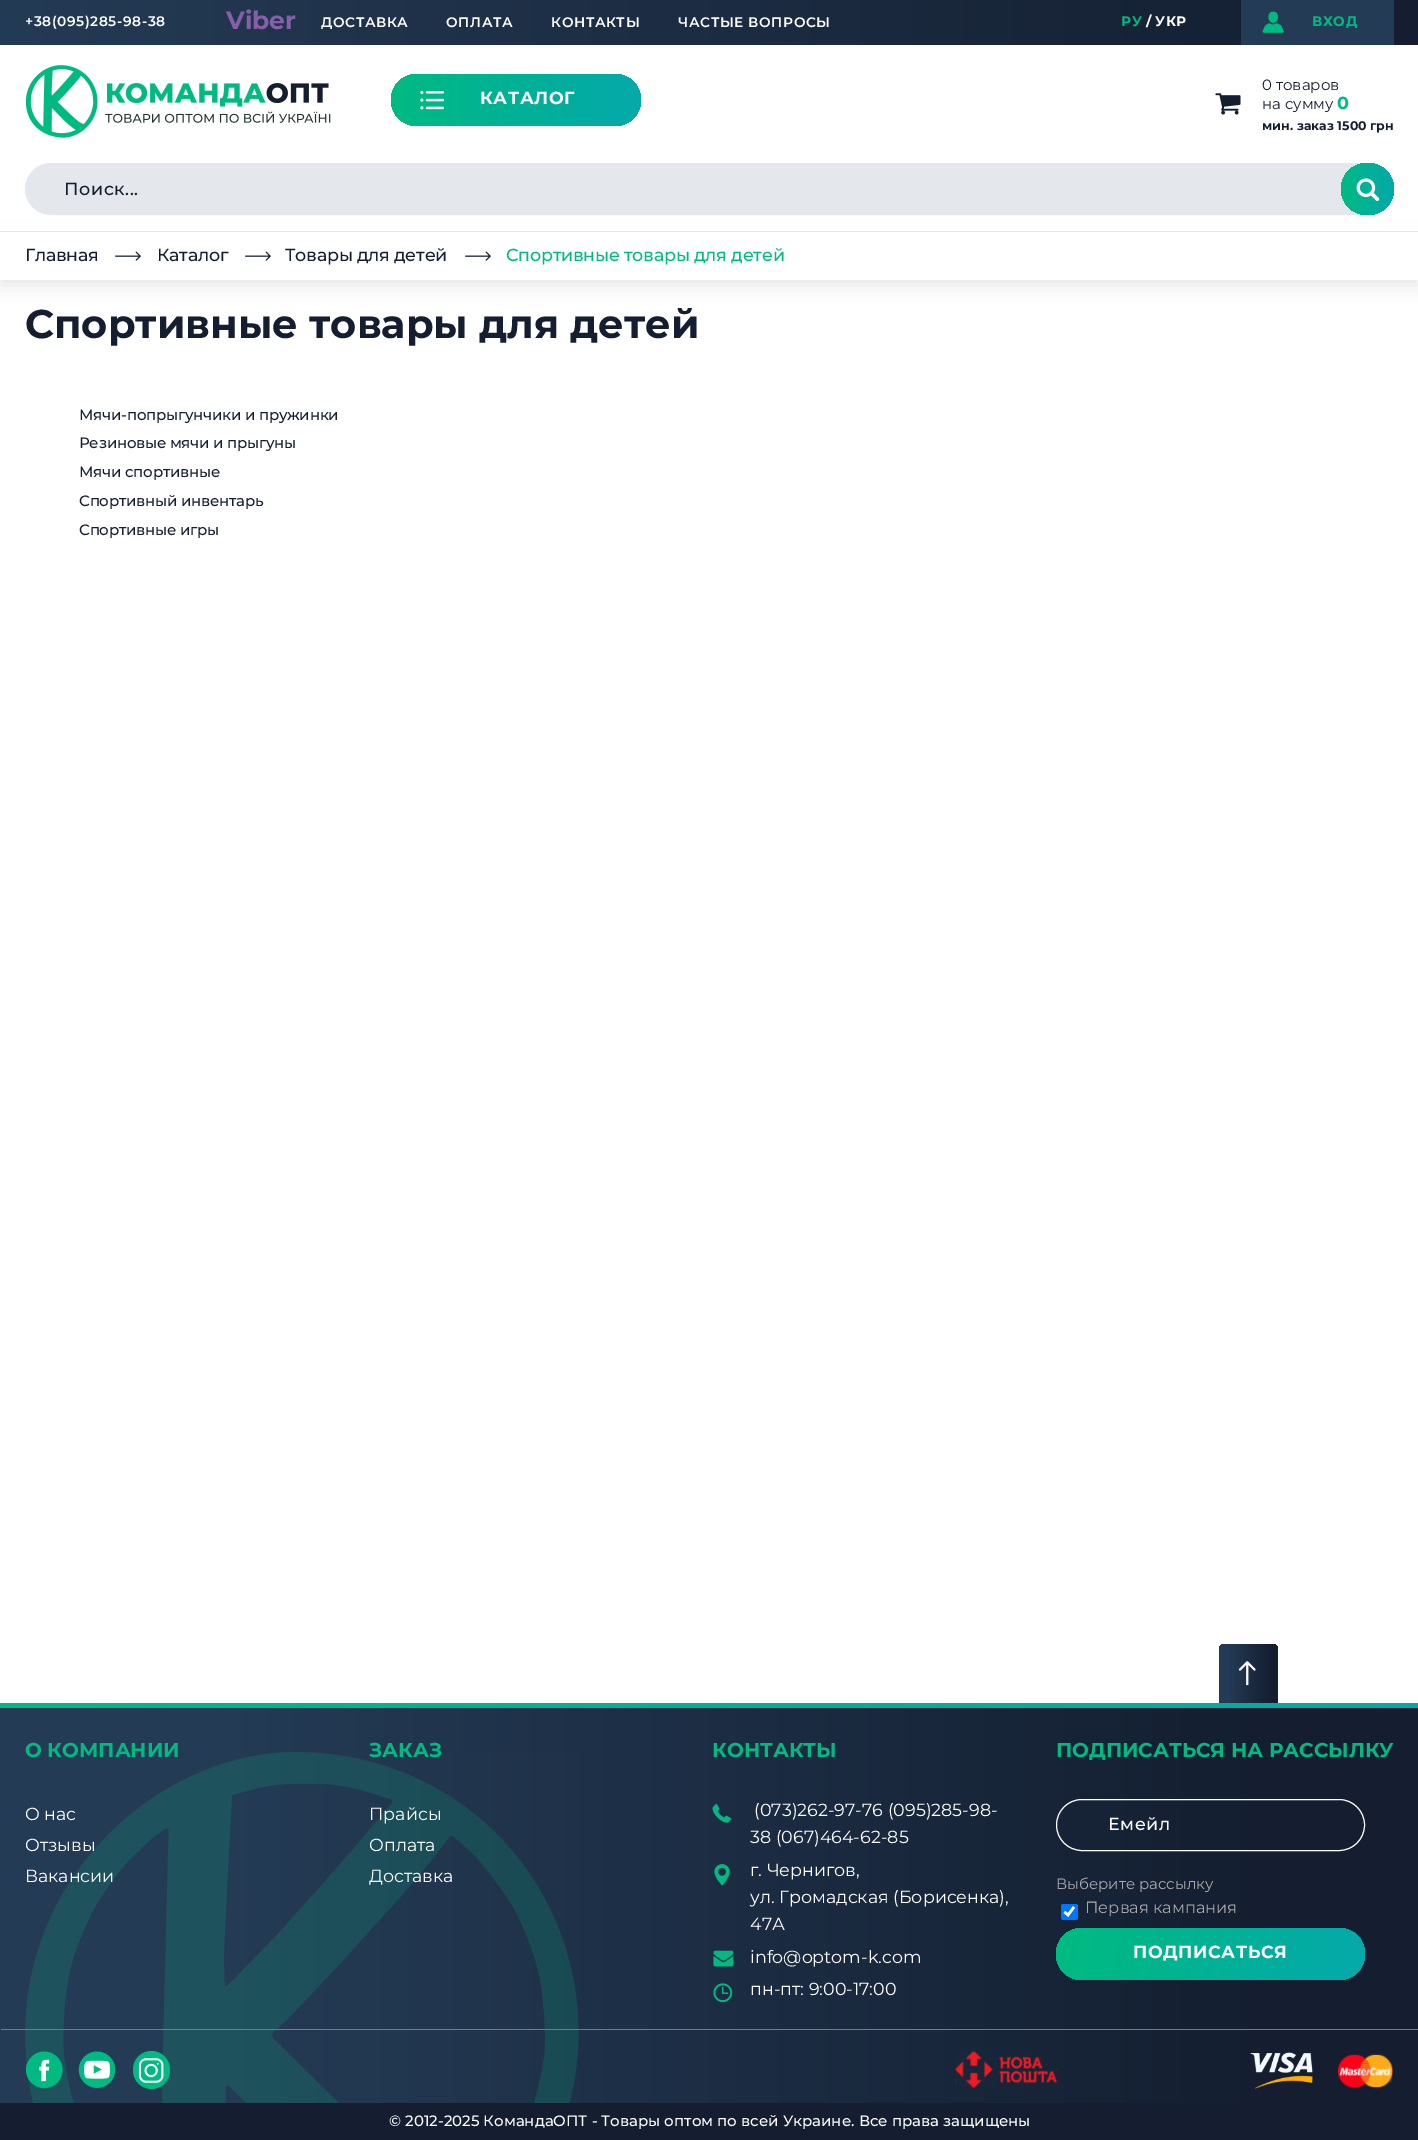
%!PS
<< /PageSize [1418 2140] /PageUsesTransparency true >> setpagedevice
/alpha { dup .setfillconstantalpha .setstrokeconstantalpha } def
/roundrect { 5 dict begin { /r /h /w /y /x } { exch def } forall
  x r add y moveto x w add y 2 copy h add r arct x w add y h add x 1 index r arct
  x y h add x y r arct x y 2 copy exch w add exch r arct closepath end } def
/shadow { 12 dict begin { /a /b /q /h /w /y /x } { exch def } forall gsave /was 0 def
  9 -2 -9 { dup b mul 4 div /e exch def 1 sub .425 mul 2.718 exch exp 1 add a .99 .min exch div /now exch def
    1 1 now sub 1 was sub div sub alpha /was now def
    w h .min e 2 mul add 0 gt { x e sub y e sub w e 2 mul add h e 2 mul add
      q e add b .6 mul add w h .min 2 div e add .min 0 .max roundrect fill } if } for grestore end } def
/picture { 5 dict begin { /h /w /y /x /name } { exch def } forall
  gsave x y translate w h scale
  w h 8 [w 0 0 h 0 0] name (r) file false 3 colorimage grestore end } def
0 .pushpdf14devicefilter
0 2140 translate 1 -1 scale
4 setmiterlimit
1 setgray
0 0 1418 2140 rectfill
gsave newpath 0 0 moveto 1418 0 lineto 1418 45 lineto 0 45 lineto closepath clip newpath
<< /ShadingType 2 /ColorSpace /DeviceRGB /Coords [0 23 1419 22] /Extend [true true] /Function << /FunctionType 3 /Domain [0 1] /Functions [<< /FunctionType 2 /Domain [0 1] /C0 [0.141 0.231 0.333] /C1 [0.078 0.118 0.188] /N 1 >> << /FunctionType 2 /Domain [0 1] /C0 [0.078 0.118 0.188] /C1 [0.078 0.118 0.188] /N 1 >>] /Bounds [0.97] /Encode [0 1 0 1] >> >> shfill grestore
/Montserrat-SemiBold [13.75 0 0 -13.75 0 0] selectfont
25 26 moveto 0.6 0 (+38\(095\)285-98-38) ashow
/Montserrat-Bold [25 0 0 -25 0 0] selectfont
0.522 0.373 0.659 setrgbcolor
226 29 moveto (Viber) show
/Montserrat-SemiBold [13.75 0 0 -13.75 0 0] selectfont
1 setgray
321 27 moveto 0.6 0 (ДОСТАВКА) ashow
446 27 moveto 0.6 0 (ОПЛАТА) ashow
551 27 moveto 0.6 0 (КОНТАКТЫ) ashow
678 27 moveto 0.6 0 (ЧАСТЫЕ ВОПРОСЫ) ashow
/Montserrat-Bold [13.75 0 0 -13.75 0 0] selectfont
0 0.729 0.51 setrgbcolor
1121 26 moveto 0.6 0 (РУ) ashow
1 setgray
1146 26 moveto (/) show
1155 26 moveto 0.6 0 (УКР) ashow
0.141 0.231 0.333 setrgbcolor
1241 0 153 45 rectfill
(img1.rgb) 1262 11 22 22 picture
0 0.729 0.51 setrgbcolor
1312 26 moveto 0.6 0 (ВХОД) ashow
(img2.rgb) 25 65 306 73 picture
gsave 391 74 250 52 26 roundrect clip newpath
<< /ShadingType 2 /ColorSpace /DeviceRGB /Coords [391 100 641 100] /Extend [true true] /Function << /FunctionType 3 /Domain [0 1] /Functions [<< /FunctionType 2 /Domain [0 1] /C0 [0 0.729 0.51] /C1 [0.016 0.663 0.663] /N 1 >> << /FunctionType 2 /Domain [0 1] /C0 [0.016 0.663 0.663] /C1 [0.016 0.663 0.663] /N 1 >>] /Bounds [0.97] /Encode [0 1 0 1] >> >> shfill grestore
(img3.rgb) 420 90 24 20 picture
/Montserrat-Bold [17.5 0 0 -17.5 0 0] selectfont
1 setgray
480 104 moveto 0.6 0 (КАТАЛОГ) ashow
/Montserrat-Regular [15 0 0 -15 0 0] selectfont
0.078 0.118 0.188 setrgbcolor
1262 90 moveto (0 товаров) show
(img4.rgb) 1215 93 26 22 picture
1262 109 moveto (на сумму) show
/Montserrat-Bold [17.5 0 0 -17.5 0 0] selectfont
0 0.729 0.51 setrgbcolor
1337 109 moveto (0) show
/Montserrat-Bold [12.5 0 0 -12.5 0 0] selectfont
0.078 0.118 0.188 setrgbcolor
1262 130 moveto (мин. заказ 1500 грн) show
0 setgray
0 236 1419 49 0 9 0.1 shadow
0.894 0.906 0.925 setrgbcolor
25.5 163.5 1368 51 25.5 roundrect gsave fill grestore
stroke
/Montserrat-Medium [17.5 0 0 -17.5 0 0] selectfont
0.078 0.118 0.188 setrgbcolor
64 195 moveto 0.6 0 (Поиск...) ashow
gsave 1341 163 53 52 26 roundrect clip newpath
<< /ShadingType 2 /ColorSpace /DeviceRGB /Coords [1341 189 1394 189] /Extend [true true] /Function << /FunctionType 3 /Domain [0 1] /Functions [<< /FunctionType 2 /Domain [0 1] /C0 [0 0.729 0.51] /C1 [0.016 0.663 0.663] /N 1 >> << /FunctionType 2 /Domain [0 1] /C0 [0.016 0.663 0.663] /C1 [0.016 0.663 0.663] /N 1 >>] /Bounds [0.97] /Encode [0 1 0 1] >> >> shfill grestore
(img5.rgb) 1356 178 24 23 picture
1 setgray
0 224 1418 7 rectfill
0 232 1418 48 rectfill
0.894 0.906 0.925 setrgbcolor
0 231 1418 1 rectfill
0.078 0.118 0.188 setrgbcolor
25 261 moveto -0.25 0 (Главная) ashow
(img6.rgb) 115 251 26 10 picture
157 261 moveto -0.25 0 (Каталог) ashow
(img6.rgb) 245 251 26 10 picture
285 261 moveto -0.25 0 (Товары для детей) ashow
(img6.rgb) 465 251 26 10 picture
0 0.729 0.51 setrgbcolor
506 261 moveto -0.25 0 (Спортивные товары для детей) ashow
/Montserrat-Bold [40 0 0 -40 0 0] selectfont
0.078 0.118 0.188 setrgbcolor
25 338 moveto (Спортивные товары для детей) show
/Montserrat-Medium [15 0 0 -15 0 0] selectfont
79 420 moveto -0.25 0 (Мячи-попрыгунчики и пружинки) ashow
79 448 moveto -0.25 0 (Резиновые мячи и прыгуны) ashow
79 477 moveto -0.25 0 (Мячи спортивные) ashow
79 506 moveto -0.25 0 (Спортивный инвентарь) ashow
79 535 moveto -0.25 0 (Спортивные игры) ashow
gsave newpath 0 1708 moveto 1418 1708 lineto 1418 2103 lineto 0 2103 lineto closepath clip newpath
<< /ShadingType 2 /ColorSpace /DeviceRGB /Coords [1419 1921 0 1921] /Extend [true true] /Function << /FunctionType 3 /Domain [0 1] /Functions [<< /FunctionType 2 /Domain [0 1] /C0 [0.078 0.118 0.188] /C1 [0.078 0.118 0.188] /N 1 >> << /FunctionType 2 /Domain [0 1] /C0 [0.078 0.118 0.188] /C1 [0.141 0.231 0.333] /N 1 >> << /FunctionType 2 /Domain [0 1] /C0 [0.141 0.231 0.333] /C1 [0.141 0.231 0.333] /N 1 >>] /Bounds [0.11 0.84] /Encode [0 1 0 1 0 1] >> >> shfill grestore
gsave newpath 0 1703 moveto 1418 1703 lineto 1418 1708 lineto 0 1708 lineto closepath clip newpath
<< /ShadingType 2 /ColorSpace /DeviceRGB /Coords [708 1668 711 1742] /Extend [true true] /Function << /FunctionType 3 /Domain [0 1] /Functions [<< /FunctionType 2 /Domain [0 1] /C0 [0 0.729 0.51] /C1 [0 0.729 0.51] /N 1 >> << /FunctionType 2 /Domain [0 1] /C0 [0 0.729 0.51] /C1 [0.016 0.663 0.663] /N 1 >> << /FunctionType 2 /Domain [0 1] /C0 [0.016 0.663 0.663] /C1 [0.016 0.663 0.663] /N 1 >>] /Bounds [0.06 0.97] /Encode [0 1 0 1 0 1] >> >> shfill grestore
gsave newpath 1225 1644 moveto 1272 1644 lineto 1275.5 1644 1278 1646.5 1278 1650 curveto 1278 1703 lineto 1219 1703 lineto 1219 1650 lineto 1219 1646.5 1221.5 1644 1225 1644 curveto closepath clip newpath
<< /ShadingType 2 /ColorSpace /DeviceRGB /Coords [1278 1673 1219 1673] /Extend [true true] /Function << /FunctionType 3 /Domain [0 1] /Functions [<< /FunctionType 2 /Domain [0 1] /C0 [0.078 0.118 0.188] /C1 [0.078 0.118 0.188] /N 1 >> << /FunctionType 2 /Domain [0 1] /C0 [0.078 0.118 0.188] /C1 [0.141 0.231 0.333] /N 1 >> << /FunctionType 2 /Domain [0 1] /C0 [0.141 0.231 0.333] /C1 [0.141 0.231 0.333] /N 1 >>] /Bounds [0.11 0.84] /Encode [0 1 0 1 0 1] >> >> shfill grestore
(img7.rgb) 1238 1661 18 25 picture
(img12.rgb) 25 1752 554 351 picture
/Montserrat-Bold [20 0 0 -20 0 0] selectfont
0 0.729 0.51 setrgbcolor
25 1757 moveto (О КОМПАНИИ) show
/Montserrat-Regular [17.5 0 0 -17.5 0 0] selectfont
1 setgray
25 1820 moveto (О нас) show
25 1851 moveto (Отзывы) show
25 1882 moveto (Вакансии) show
/Montserrat-Bold [20 0 0 -20 0 0] selectfont
0 0.729 0.51 setrgbcolor
369 1757 moveto (ЗАКАЗ) show
/Montserrat-Regular [17.5 0 0 -17.5 0 0] selectfont
1 setgray
369 1820 moveto (Прайсы) show
369 1851 moveto (Оплата) show
369 1882 moveto (Доставка) show
/Montserrat-Bold [20 0 0 -20 0 0] selectfont
0 0.729 0.51 setrgbcolor
712 1757 moveto (КОНТАКТЫ) show
(img8.rgb) 712 1803 20 20 picture
/Montserrat-Regular [17.5 0 0 -17.5 0 0] selectfont
1 setgray
754 1816 moveto (\(073\)262-97-76 \(095\)285-98-) show
750 1843 moveto (38 \(067\)464-62-85) show
(img9.rgb) 714 1864 16 22 picture
750 1876 moveto (г. Чернигов,) show
750 1903 moveto (ул. Громадская \(Борисенка\),) show
750 1930 moveto (47А) show
(img10.rgb) 713 1950 21 17 picture
750 1963 moveto (info@optom-k.com) show
(img11.rgb) 713 1983 20 20 picture
750 1995 moveto (пн-пт: 9:00-17:00) show
/Montserrat-Bold [20 0 0 -20 0 0] selectfont
0 0.729 0.51 setrgbcolor
1056 1757 moveto (ПОДПИСАТЬСЯ НА РАССЫЛКУ) show
1 setgray
1056.5 1799.5 308 51 25.5 roundrect stroke
/Montserrat-Medium [17.5 0 0 -17.5 0 0] selectfont
1108 1830 moveto 0.6 0 (Емейл) ashow
/Montserrat-Regular [15 0 0 -15 0 0] selectfont
0.667 setgray
1056 1889 moveto (Выберите рассылку) show
0 0.459 1 setrgbcolor
1061 1904 17 16 2.5 roundrect fill
1 setgray
2.6 setlinewidth
newpath 1064.5 1912 moveto 1068 1915 lineto 1074 1907 lineto stroke
/Montserrat-Regular [16.25 0 0 -16.25 0 0] selectfont
0.667 setgray
1085 1913 moveto (Первая кампания) show
gsave 1056 1928 309 52 26 roundrect clip newpath
<< /ShadingType 2 /ColorSpace /DeviceRGB /Coords [1059 1916 1362 1991] /Extend [true true] /Function << /FunctionType 3 /Domain [0 1] /Functions [<< /FunctionType 2 /Domain [0 1] /C0 [0 0.729 0.51] /C1 [0 0.729 0.51] /N 1 >> << /FunctionType 2 /Domain [0 1] /C0 [0 0.729 0.51] /C1 [0.016 0.663 0.663] /N 1 >> << /FunctionType 2 /Domain [0 1] /C0 [0.016 0.663 0.663] /C1 [0.016 0.663 0.663] /N 1 >>] /Bounds [0.06 0.97] /Encode [0 1 0 1 0 1] >> >> shfill grestore
/Montserrat-Bold [17.5 0 0 -17.5 0 0] selectfont
1 setgray
1133 1958 moveto 0.6 0 (ПОДПИСАТЬСЯ) ashow
gsave newpath 1 2029 moveto 1418 2029 lineto 1418 2030 lineto 1 2030 lineto closepath clip newpath
<< /ShadingType 2 /ColorSpace /DeviceRGB /Coords [710 2020 710 2039] /Extend [true true] /Function << /FunctionType 3 /Domain [0 1] /Functions [<< /FunctionType 2 /Domain [0 1] /C0 [0 0.729 0.51] /C1 [0 0.729 0.51] /N 1 >> << /FunctionType 2 /Domain [0 1] /C0 [0 0.729 0.51] /C1 [0.016 0.663 0.663] /N 1 >> << /FunctionType 2 /Domain [0 1] /C0 [0.016 0.663 0.663] /C1 [0.016 0.663 0.663] /N 1 >>] /Bounds [0.06 0.97] /Encode [0 1 0 1 0 1] >> >> shfill grestore
newpath 44.5 2070.5 15.5 0 360 arc closepath fill
(img13.rgb) 25 2051 38 38 picture
newpath 98.5 2070.5 15.5 0 360 arc closepath fill
(img14.rgb) 78 2051 38 37 picture
0 0.729 0.51 setrgbcolor
133 2051 37 38 18.5 roundrect fill
(img15.rgb) 138 2058 26 25 picture
(img16.rgb) 955 2051 102 37 picture
(img17.rgb) 1250 2052 63 37 picture
(img18.rgb) 1338 2054 55 34 picture
0.078 0.118 0.188 setrgbcolor
0 2103 1418 37 rectfill
/Montserrat-Medium [15 0 0 -15 0 0] selectfont
1 setgray
389 2126 moveto (© 2012-2025 КомандаОПТ - Товары оптом по всей Украине. Все права защищены) show
.poppdf14devicefilter showpage
